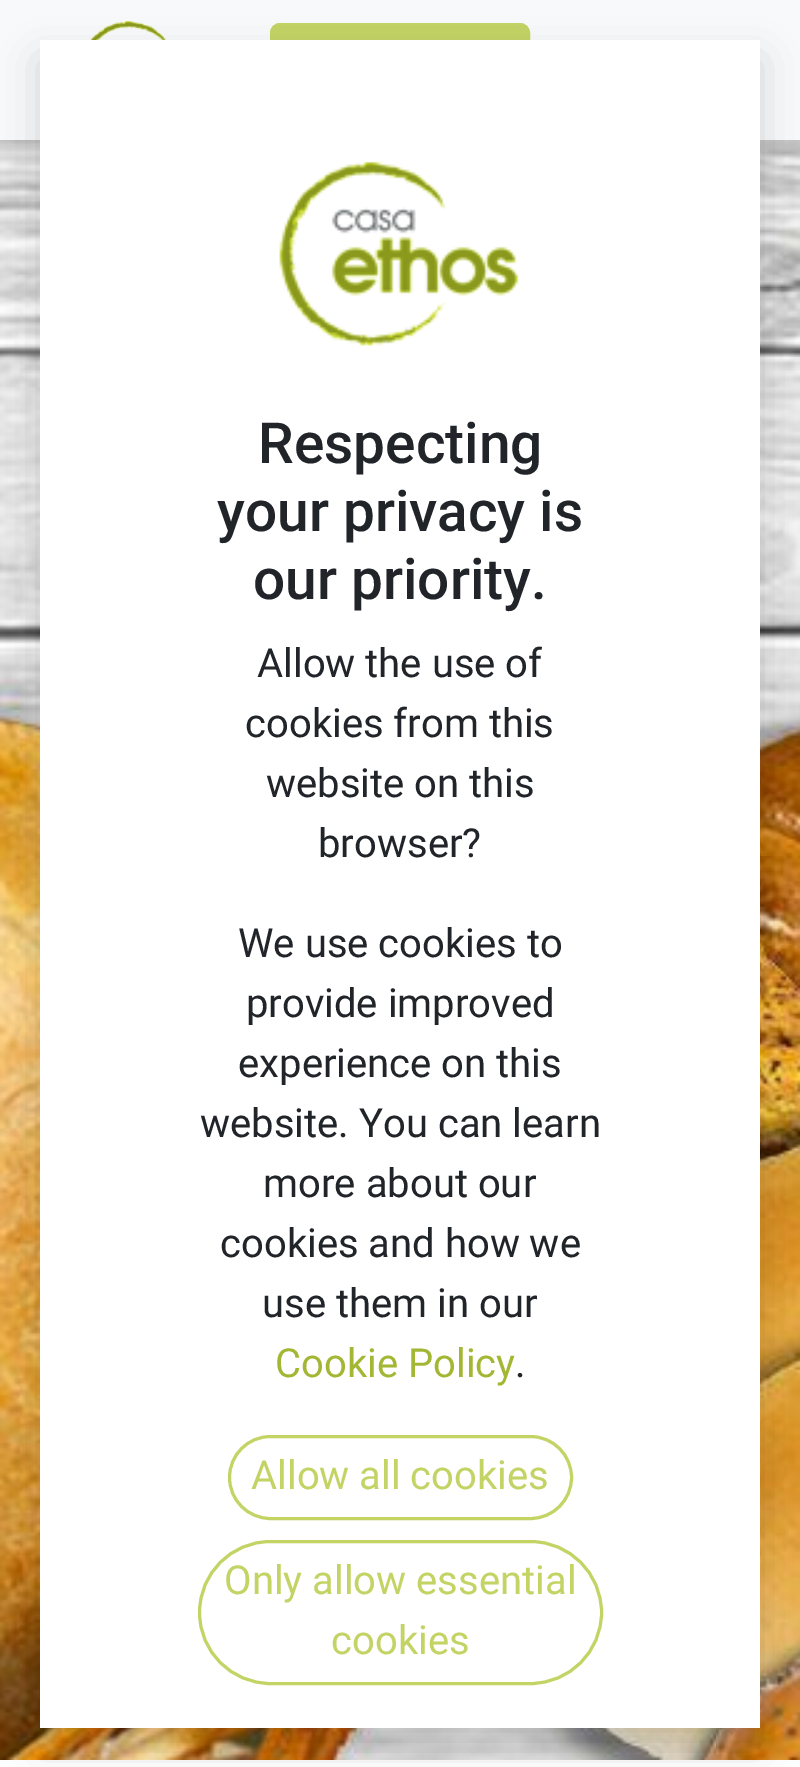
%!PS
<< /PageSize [800 1767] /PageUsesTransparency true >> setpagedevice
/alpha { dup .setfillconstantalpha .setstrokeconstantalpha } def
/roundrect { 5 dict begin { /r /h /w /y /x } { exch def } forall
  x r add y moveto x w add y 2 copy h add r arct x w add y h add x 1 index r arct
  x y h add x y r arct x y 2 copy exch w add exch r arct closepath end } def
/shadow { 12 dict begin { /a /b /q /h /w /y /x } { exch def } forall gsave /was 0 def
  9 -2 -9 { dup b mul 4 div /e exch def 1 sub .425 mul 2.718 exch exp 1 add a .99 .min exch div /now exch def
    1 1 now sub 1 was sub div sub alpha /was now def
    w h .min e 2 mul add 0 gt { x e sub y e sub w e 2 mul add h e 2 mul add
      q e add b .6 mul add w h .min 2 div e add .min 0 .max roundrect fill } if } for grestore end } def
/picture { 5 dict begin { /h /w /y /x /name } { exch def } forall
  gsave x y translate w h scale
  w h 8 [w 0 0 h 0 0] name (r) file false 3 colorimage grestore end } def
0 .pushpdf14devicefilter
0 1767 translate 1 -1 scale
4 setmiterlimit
1 setgray
0 0 800 1767 rectfill
(img2.rgb) 0 140 800 1620 picture
0 setgray
0 5 800 140 0 5 0.07 shadow
0.973 0.976 0.98 setrgbcolor
0 0 800 140 rectfill
(img1.rgb) 90 21 77 19 picture
0.765 0.827 0.392 setrgbcolor
271.5 24.5 257 92 8.5 roundrect gsave fill grestore
3 setlinewidth
stroke
(img3.rgb) 31 299 767 1461 picture
0 setgray
40 60 720 1688 0 20 0.15 shadow
1 setgray
40 40 720 1688 rectfill
(img4.rgb) 279 161 240 185 picture
/Roboto-Medium [56.75 0 0 -56.75 0 0] selectfont
0.129 0.145 0.161 setrgbcolor
258 463 moveto (Respecting) show
217 531 moveto (your privacy is) show
253 599 moveto (our priority.) show
/Roboto-Regular [40 0 0 -40 0 0] selectfont
257 677 moveto (Allow the use of) show
245 737 moveto (cookies from this) show
266 797 moveto (website on this) show
318 857 moveto (browser?) show
238 957 moveto (We use cookies to) show
246 1017 moveto (provide improved) show
238 1077 moveto (experience on this) show
200 1137 moveto (website. You can learn) show
263 1197 moveto (more about our) show
220 1257 moveto (cookies and how we) show
262 1317 moveto (use them in our) show
0.643 0.718 0.204 setrgbcolor
275 1377 moveto (Cookie Policy) show
0.129 0.145 0.161 setrgbcolor
515 1377 moveto (.) show
0.765 0.827 0.392 setrgbcolor
229.5 1436.5 342 82 41 roundrect stroke
251 1489 moveto (Allow all cookies) show
199.5 1541.5 402 142 71 roundrect stroke
224 1594 moveto (Only allow essential) show
331 1654 moveto (cookies) show
.poppdf14devicefilter showpage
